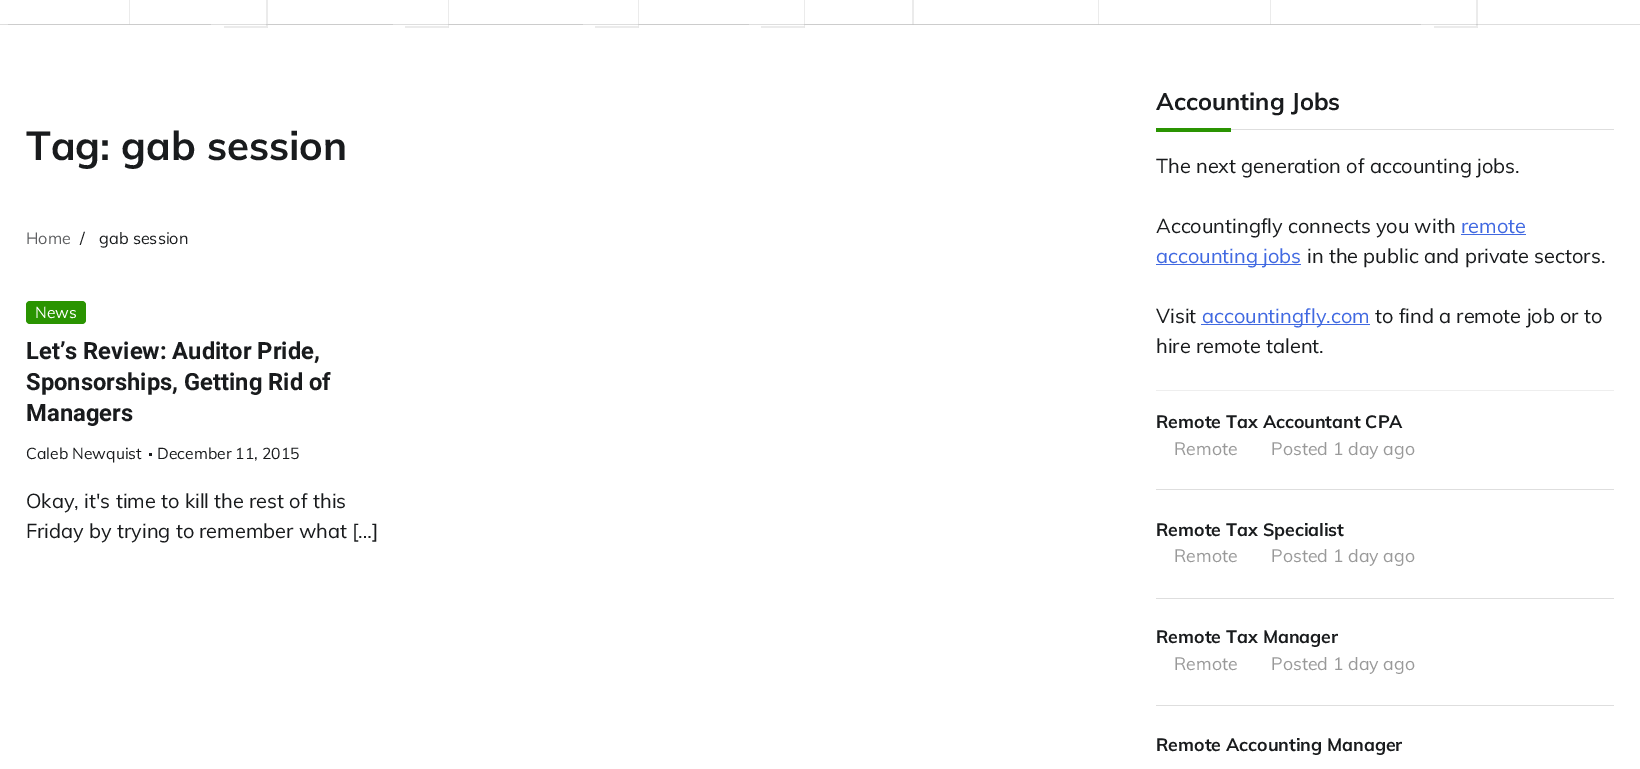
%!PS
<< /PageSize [1640 769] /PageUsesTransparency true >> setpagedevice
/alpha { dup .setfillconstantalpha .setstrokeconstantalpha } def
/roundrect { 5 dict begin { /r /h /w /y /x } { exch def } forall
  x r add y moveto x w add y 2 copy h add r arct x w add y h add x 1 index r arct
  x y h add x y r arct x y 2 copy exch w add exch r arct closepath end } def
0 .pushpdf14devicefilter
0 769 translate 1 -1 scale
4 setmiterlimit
1 setgray
0 0 1640 769 rectfill
0.871 setgray
0 24 1640 1 rectfill
0.08 alpha
0 setgray
newpath 130 -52 moveto 130 25 lineto 129 24 lineto 129 -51 lineto closepath fill
newpath 130 25 moveto 8 25 lineto 8 24 lineto 129 24 lineto closepath fill
1 alpha
0.8 setgray
130 24 81 1 rectfill
0.08 alpha
0 setgray
newpath 268 -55 moveto 268 28 lineto 266 26 lineto 266 -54 lineto closepath fill
newpath 268 28 moveto 224 28 lineto 224 26 lineto 266 26 lineto closepath fill
1 alpha
0.8 setgray
268 24 125 1 rectfill
0.08 alpha
0 setgray
newpath 449 -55 moveto 449 28 lineto 448 26 lineto 448 -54 lineto closepath fill
newpath 449 28 moveto 405 28 lineto 405 26 lineto 448 26 lineto closepath fill
1 alpha
0.8 setgray
449 24 134 1 rectfill
0.08 alpha
0 setgray
newpath 639 -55 moveto 639 28 lineto 638 26 lineto 638 -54 lineto closepath fill
newpath 639 28 moveto 595 28 lineto 595 26 lineto 638 26 lineto closepath fill
1 alpha
0.8 setgray
639 24 110 1 rectfill
0.08 alpha
0 setgray
newpath 805 -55 moveto 805 28 lineto 804 26 lineto 804 -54 lineto closepath fill
newpath 805 28 moveto 761 28 lineto 761 26 lineto 804 26 lineto closepath fill
newpath 914 -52 moveto 914 25 lineto 912 24 lineto 912 -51 lineto closepath fill
newpath 914 25 moveto 805 25 lineto 805 24 lineto 912 24 lineto closepath fill
newpath 1099 -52 moveto 1099 25 lineto 1098 24 lineto 1098 -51 lineto closepath fill
newpath 1099 25 moveto 914 25 lineto 914 24 lineto 1098 24 lineto closepath fill
newpath 1271 -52 moveto 1271 25 lineto 1270 24 lineto 1270 -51 lineto closepath fill
newpath 1271 25 moveto 1099 25 lineto 1099 24 lineto 1270 24 lineto closepath fill
1 alpha
0.8 setgray
1271 24 150 1 rectfill
0.08 alpha
0 setgray
newpath 1478 -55 moveto 1478 28 lineto 1476 26 lineto 1476 -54 lineto closepath fill
newpath 1478 28 moveto 1434 28 lineto 1434 26 lineto 1476 26 lineto closepath fill
/Muli-Bold [40 0 0 -40 0 0] selectfont
1 alpha
0.098 0.106 0.114 setrgbcolor
26 160 moveto (Tag: gab session) show
/Muli-Regular [16.25 0 0 -16.25 0 0] selectfont
0.369 0.373 0.38 setrgbcolor
26 244 moveto (Home) show
0.098 0.106 0.114 setrgbcolor
80 244 moveto (/) show
99 244 moveto (gab session) show
0.165 0.58 0.004 setrgbcolor
26 301 60 23 4 roundrect fill
/Muli-Regular [15.75 0 0 -15.75 0 0] selectfont
1 setgray
35 318 moveto (News) show
/Roboto-Bold [23.75 0 0 -23.75 0 0] selectfont
0.098 0.106 0.114 setrgbcolor
26 359 moveto (Let’s Review: Auditor Pride,) show
26 390 moveto (Sponsorships, Getting Rid of) show
26 421 moveto (Managers) show
/Muli-Regular [15.75 0 0 -15.75 0 0] selectfont
26 459 moveto (Caleb Newquist) show
149 453 3 3 rectfill
157 459 moveto (December 11, 2015) show
/Muli-Regular [20 0 0 -20 0 0] selectfont
26 508 moveto (Okay, it's time to kill the rest of this) show
26 538 moveto (Friday by trying to remember what […]) show
0.871 setgray
1231 129 383 1 rectfill
/Muli-Bold [23.75 0 0 -23.75 0 0] selectfont
0.098 0.106 0.114 setrgbcolor
1156 110 moveto (Accounting Jobs) show
0.165 0.58 0.004 setrgbcolor
1156 128 75 4 rectfill
/Muli-Regular [20 0 0 -20 0 0] selectfont
0.098 0.106 0.114 setrgbcolor
1156 173 moveto (The next generation of accounting jobs.) show
1156 233 moveto (Accountingfly connects you with) show
0.255 0.412 0.882 setrgbcolor
1461 233 moveto (remote) show
1461 234 65 1 rectfill
1156 264 145 1 rectfill
1156 263 moveto (accounting jobs) show
0.098 0.106 0.114 setrgbcolor
1307 263 moveto (in the public and private sectors.) show
1156 323 moveto (Visit) show
0.255 0.412 0.882 setrgbcolor
1201 324 169 1 rectfill
1202 323 moveto (accountingfly.com) show
0.098 0.106 0.114 setrgbcolor
1375 323 moveto (to find a remote job or to) show
1156 353 moveto (hire remote talent.) show
0.933 setgray
1156 390 458 1 rectfill
0.871 setgray
1156 489 458 1 rectfill
/Muli-Bold [17.75 0 0 -17.75 0 0] selectfont
0.098 0.106 0.114 setrgbcolor
1156 428 moveto (Remote Tax Accountant CPA) show
/Muli-Regular [17.75 0 0 -17.75 0 0] selectfont
0.6 setgray
1174 455 moveto (Remote) show
1271 455 moveto (Posted 1 day ago) show
0.871 setgray
1156 598 458 1 rectfill
/Muli-Bold [17.75 0 0 -17.75 0 0] selectfont
0.098 0.106 0.114 setrgbcolor
1156 536 moveto (Remote Tax Specialist) show
/Muli-Regular [17.75 0 0 -17.75 0 0] selectfont
0.6 setgray
1174 562 moveto (Remote) show
1271 562 moveto (Posted 1 day ago) show
0.871 setgray
1156 705 458 1 rectfill
/Muli-Bold [17.75 0 0 -17.75 0 0] selectfont
0.098 0.106 0.114 setrgbcolor
1156 643 moveto (Remote Tax Manager) show
/Muli-Regular [17.75 0 0 -17.75 0 0] selectfont
0.6 setgray
1174 670 moveto (Remote) show
1271 670 moveto (Posted 1 day ago) show
/Muli-Bold [17.75 0 0 -17.75 0 0] selectfont
0.098 0.106 0.114 setrgbcolor
1156 751 moveto (Remote Accounting Manager) show
.poppdf14devicefilter showpage
